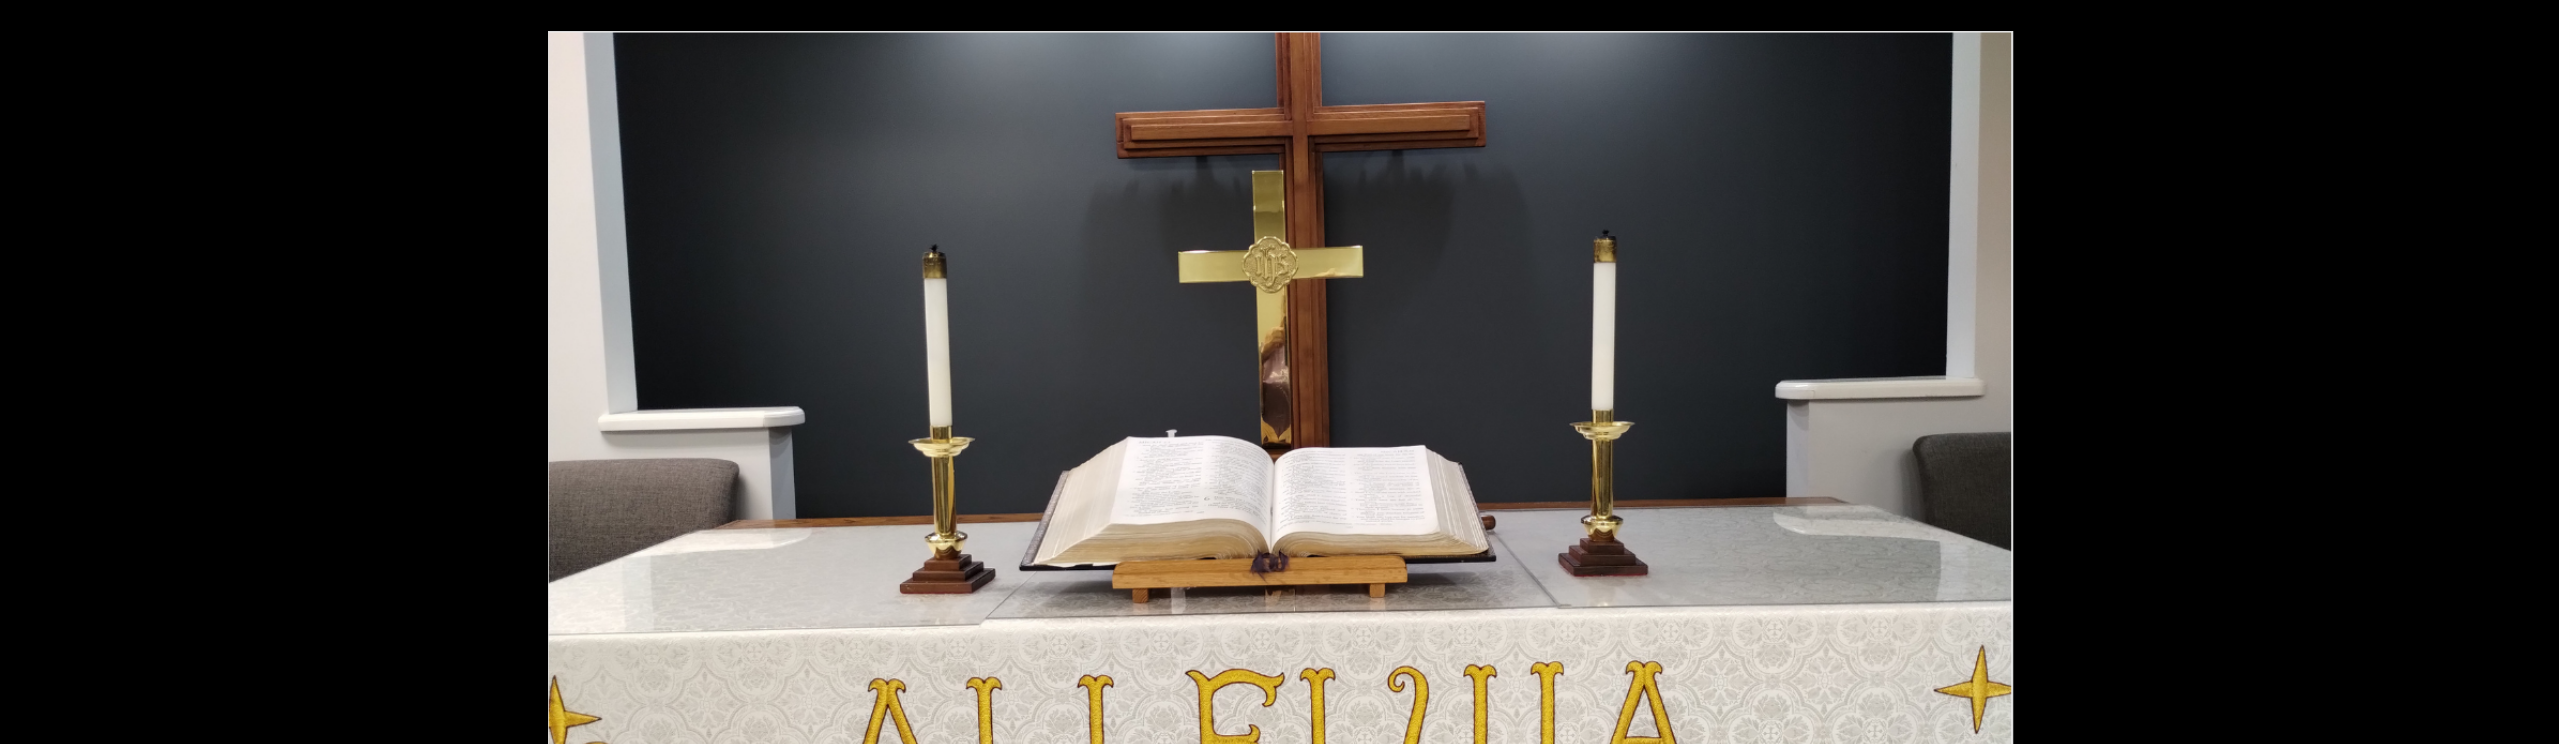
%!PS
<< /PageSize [2559 744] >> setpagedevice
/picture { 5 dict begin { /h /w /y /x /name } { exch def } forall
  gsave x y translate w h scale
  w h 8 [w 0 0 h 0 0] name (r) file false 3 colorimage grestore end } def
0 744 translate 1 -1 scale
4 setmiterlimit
0 setgray
0 0 2559 744 rectfill
0.933 setgray
newpath 548.5 31.5 moveto 2012.5 31.5 lineto 2012.5 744.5 lineto 548.5 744.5 lineto closepath gsave fill grestore
0.867 setgray
stroke
(img1.rgb) 548 32 1464 712 picture
showpage
